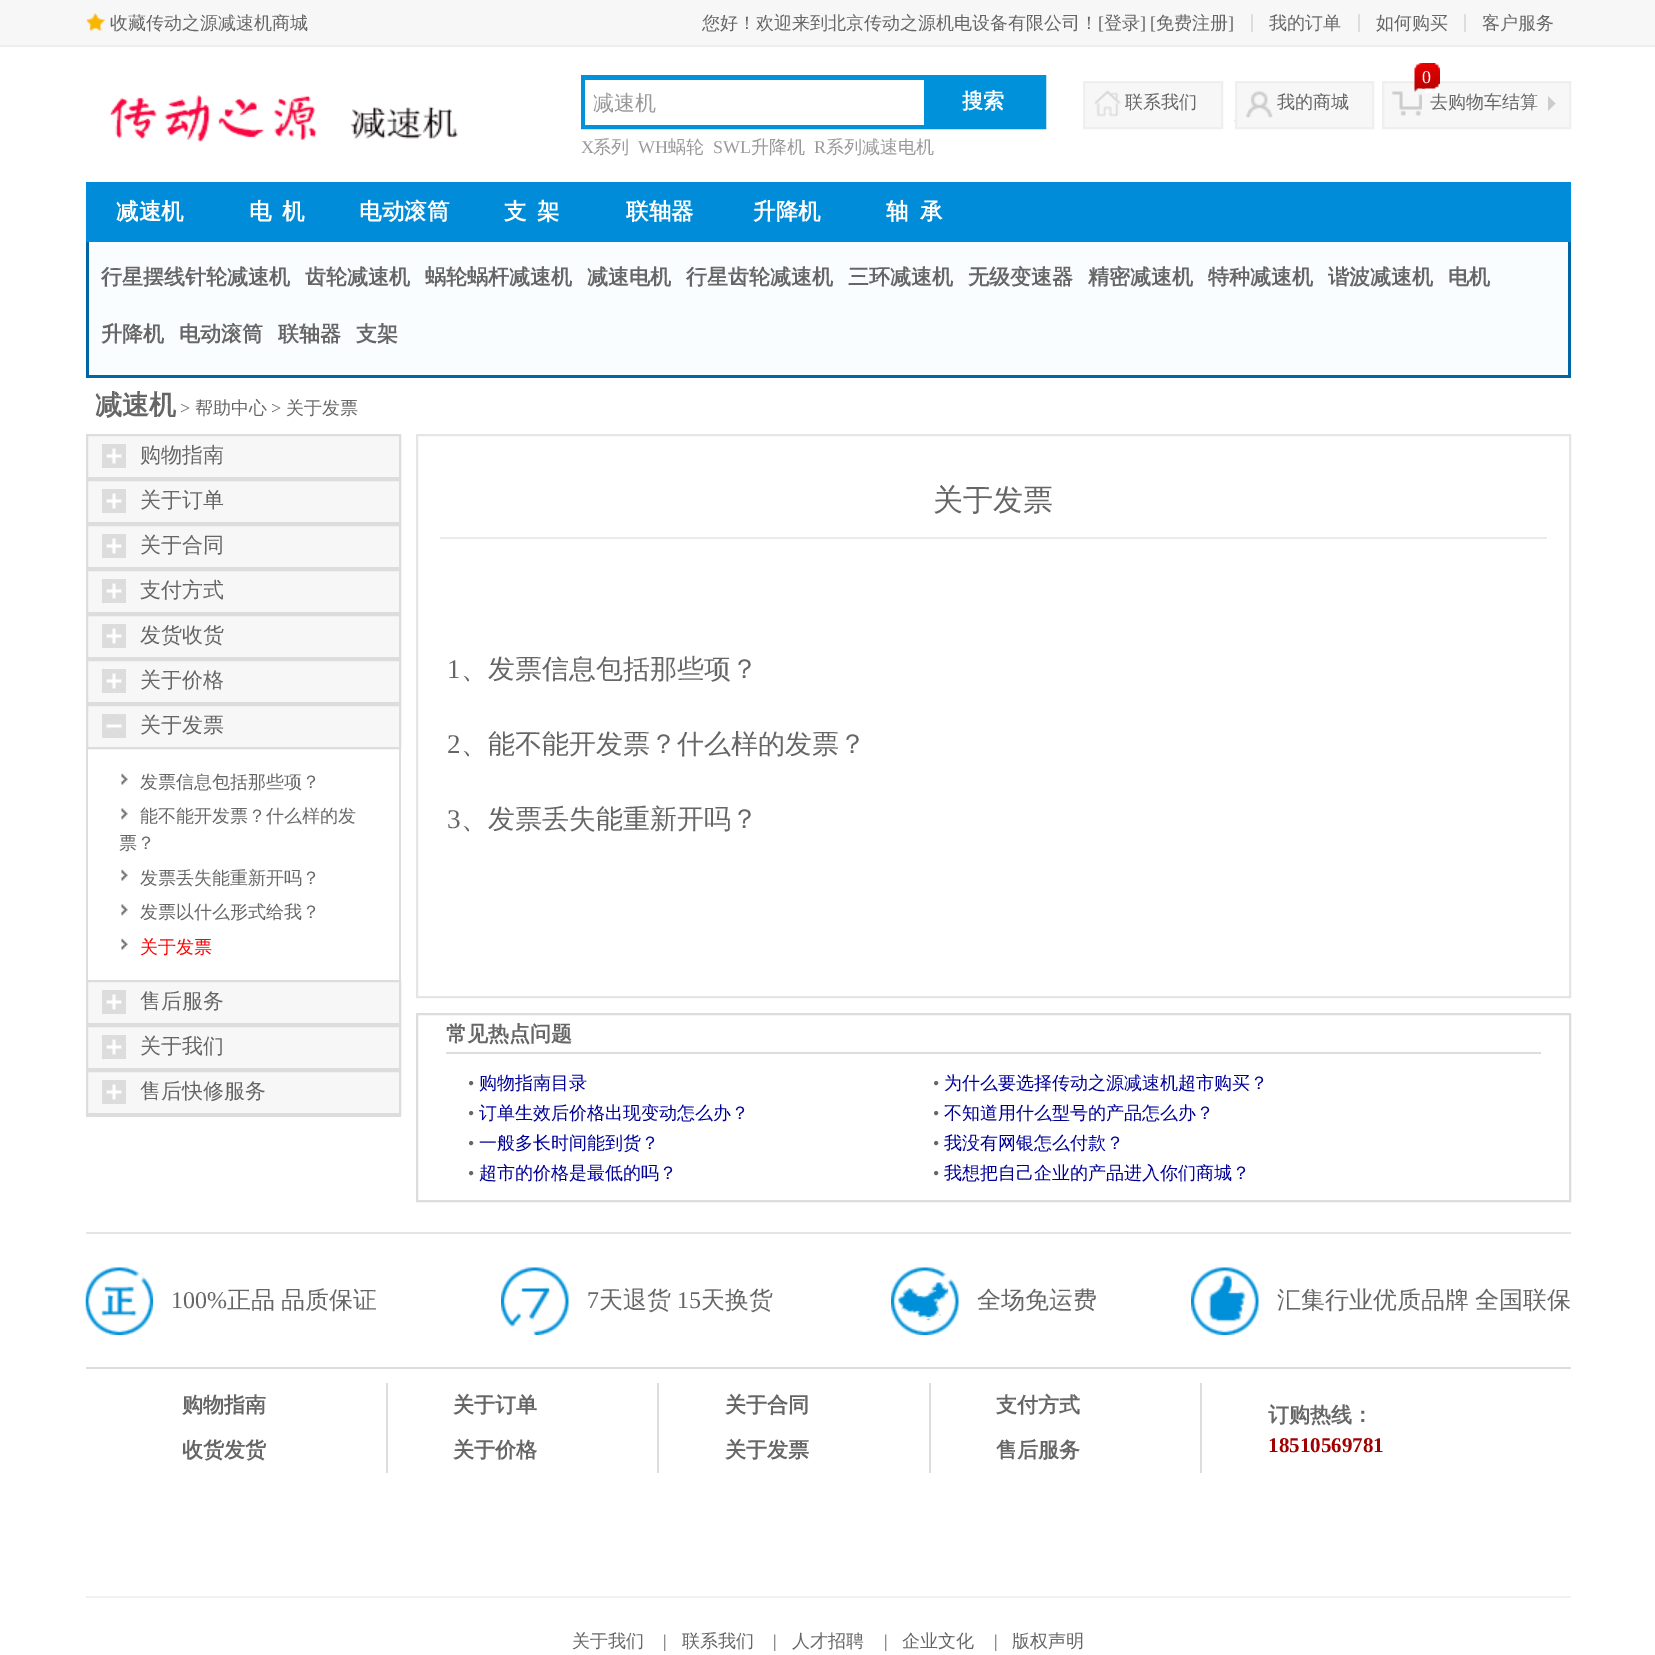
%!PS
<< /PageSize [1655 1655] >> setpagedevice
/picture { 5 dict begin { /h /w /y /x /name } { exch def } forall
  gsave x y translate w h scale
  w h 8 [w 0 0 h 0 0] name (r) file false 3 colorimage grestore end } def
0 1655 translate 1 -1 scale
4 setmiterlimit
1 setgray
0 0 1655 1655 rectfill
0.969 setgray
0 0 1655 45 rectfill
0.933 setgray
0 45 1655 2 rectfill
(img1.rgb) 86 13 19 18 picture
/WenQuanYiZenHei-Medium [18 0 0 -18 0 0] selectfont
0.4 setgray
110 29 moveto (收藏传动之源减速机商城) show
702 29 moveto (您好！欢迎来到北京传动之源机电设备有限公司！) show
/LiberationSerif-Regular [18 0 0 -18 0 0] selectfont
1098 29 moveto ([) show
/WenQuanYiZenHei-Medium [18 0 0 -18 0 0] selectfont
1104 29 moveto (登录) show
/LiberationSerif-Regular [18 0 0 -18 0 0] selectfont
1140 29 moveto (] [) show
/WenQuanYiZenHei-Medium [18 0 0 -18 0 0] selectfont
1156 29 moveto (免费注册) show
/LiberationSerif-Regular [18 0 0 -18 0 0] selectfont
1228 29 moveto (]) show
0.867 setgray
1251 14 2 18 rectfill
/WenQuanYiZenHei-Medium [18 0 0 -18 0 0] selectfont
0.4 setgray
1269 29 moveto (我的订单) show
0.867 setgray
1358 14 2 18 rectfill
0.4 setgray
1376 29 moveto (如何购买) show
0.867 setgray
1464 14 2 18 rectfill
0.4 setgray
1482 29 moveto (客户服务) show
(img2.rgb) 109 95 349 47 picture
0 0.569 0.859 setrgbcolor
5 setlinewidth
583.5 77.5 460 49 rectstroke
1 setgray
585 80 339 45 rectfill
/WenQuanYiZenHei-Medium [21 0 0 -21 0 0] selectfont
0.6 setgray
593 110 moveto (减速机) show
0 0.569 0.859 setrgbcolor
924 80 117 44 rectfill
/WenQuanYiZenHei-Bold [21 0 0 -21 0 0] selectfont
1 setgray
962 108 moveto (搜索) show
/LiberationSerif-Regular [18 0 0 -18 0 0] selectfont
0.6 setgray
581 153 moveto (X) show
/WenQuanYiZenHei-Medium [18 0 0 -18 0 0] selectfont
593 153 moveto (系列) show
/LiberationSerif-Regular [18 0 0 -18 0 0] selectfont
638 153 moveto (WH) show
/WenQuanYiZenHei-Medium [18 0 0 -18 0 0] selectfont
668 153 moveto (蜗轮) show
/LiberationSerif-Regular [18 0 0 -18 0 0] selectfont
713 153 moveto (SWL) show
/WenQuanYiZenHei-Medium [18 0 0 -18 0 0] selectfont
751 153 moveto (升降机) show
/LiberationSerif-Regular [18 0 0 -18 0 0] selectfont
814 153 moveto (R) show
/WenQuanYiZenHei-Medium [18 0 0 -18 0 0] selectfont
826 153 moveto (系列减速电机) show
0.969 setgray
1085 83 136 44 rectfill
(img3.rgb) 1094 90 27 27 picture
0.937 setgray
2 setlinewidth
1084 82 138 46 rectstroke
0.4 setgray
1125 108 moveto (联系我们) show
0.969 setgray
1237 83 135 44 rectfill
(img4.rgb) 1234 91 39 31 picture
0.937 setgray
1236 82 137 46 rectstroke
0.4 setgray
1277 108 moveto (我的商城) show
0.969 setgray
1384 83 185 44 rectfill
(img5.rgb) 1391 91 31 25 picture
0.937 setgray
1383 82 187 46 rectstroke
0.4 setgray
1430 108 moveto (去购物车结算) show
(img6.rgb) 1413 63 27 30 picture
(img7.rgb) 1422 63 18 26 picture
/LiberationSerif-Regular [18 0 0 -18 0 0] selectfont
1 setgray
1422 83 moveto (0) show
0.8 setgray
newpath 1548 111 moveto 1548 96 lineto 1555.5 103.5 lineto closepath fill
0 0.549 0.847 setrgbcolor
86 182 1485 60 rectfill
/WenQuanYiZenHei-Bold [22.5 0 0 -22.5 0 0] selectfont
1 setgray
116 219 moveto (减速机) show
249 219 moveto (电) show
282 219 moveto (机) show
359 219 moveto (电动滚筒) show
504 219 moveto (支) show
537 219 moveto (架) show
626 219 moveto (联轴器) show
753 219 moveto (升降机) show
886 219 moveto (轴) show
920 219 moveto (承) show
0.98 0.992 1 setrgbcolor
89 242 1479 133 rectfill
0 0.396 0.647 setrgbcolor
1568 242 3 136 rectfill
86 375 1485 3 rectfill
86 242 3 136 rectfill
/WenQuanYiZenHei-Bold [21 0 0 -21 0 0] selectfont
0.4 setgray
101 284 moveto (行星摆线针轮减速机) show
305 284 moveto (齿轮减速机) show
425 284 moveto (蜗轮蜗杆减速机) show
587 284 moveto (减速电机) show
686 284 moveto (行星齿轮减速机) show
848 284 moveto (三环减速机) show
968 284 moveto (无级变速器) show
1088 284 moveto (精密减速机) show
1208 284 moveto (特种减速机) show
1328 284 moveto (谐波减速机) show
1448 284 moveto (电机) show
101 341 moveto (升降机) show
179 341 moveto (电动滚筒) show
278 341 moveto (联轴器) show
356 341 moveto (支架) show
/WenQuanYiZenHei-Bold [27 0 0 -27 0 0] selectfont
95 414 moveto (减速机) show
/LiberationSerif-Regular [18 0 0 -18 0 0] selectfont
180 414 moveto (>) show
/WenQuanYiZenHei-Medium [18 0 0 -18 0 0] selectfont
195 414 moveto (帮助中心) show
/LiberationSerif-Regular [18 0 0 -18 0 0] selectfont
271 414 moveto (>) show
/WenQuanYiZenHei-Medium [18 0 0 -18 0 0] selectfont
286 414 moveto (关于发票) show
0.867 setgray
86 1115 315 2 rectfill
0.969 setgray
newpath 87 435 moveto 400 435 lineto 400 478 lineto 87 478 lineto closepath gsave fill grestore
0.867 setgray
stroke
(img8.rgb) 102 444 24 24 picture
/WenQuanYiZenHei-Medium [21 0 0 -21 0 0] selectfont
0.4 setgray
140 462 moveto (购物指南) show
0.969 setgray
newpath 87 480 moveto 400 480 lineto 400 523 lineto 87 523 lineto closepath gsave fill grestore
0.867 setgray
stroke
(img8.rgb) 102 489 24 24 picture
0.4 setgray
140 507 moveto (关于订单) show
0.969 setgray
newpath 87 525 moveto 400 525 lineto 400 568 lineto 87 568 lineto closepath gsave fill grestore
0.867 setgray
stroke
(img8.rgb) 102 534 24 24 picture
0.4 setgray
140 552 moveto (关于合同) show
0.969 setgray
newpath 87 570 moveto 400 570 lineto 400 613 lineto 87 613 lineto closepath gsave fill grestore
0.867 setgray
stroke
(img8.rgb) 102 579 24 24 picture
0.4 setgray
140 597 moveto (支付方式) show
0.969 setgray
newpath 87 615 moveto 400 615 lineto 400 658 lineto 87 658 lineto closepath gsave fill grestore
0.867 setgray
stroke
(img8.rgb) 102 624 24 24 picture
0.4 setgray
140 642 moveto (发货收货) show
0.969 setgray
newpath 87 660 moveto 400 660 lineto 400 703 lineto 87 703 lineto closepath gsave fill grestore
0.867 setgray
stroke
(img8.rgb) 102 669 24 24 picture
0.4 setgray
140 687 moveto (关于价格) show
0.969 setgray
newpath 87 705 moveto 400 705 lineto 400 748 lineto 87 748 lineto closepath gsave fill grestore
0.867 setgray
stroke
(img9.rgb) 102 714 24 24 picture
0.4 setgray
140 732 moveto (关于发票) show
0.867 setgray
399 749 2 231 rectfill
86 749 2 231 rectfill
(img10.rgb) 121 773 7 12 picture
/WenQuanYiZenHei-Medium [18 0 0 -18 0 0] selectfont
0.4 setgray
140 788 moveto (发票信息包括那些项？) show
(img11.rgb) 121 808 7 12 picture
140 822 moveto (能不能开发票？什么样的发) show
119 849 moveto (票？) show
(img10.rgb) 121 869 7 12 picture
140 884 moveto (发票丢失能重新开吗？) show
(img11.rgb) 121 904 7 12 picture
140 918 moveto (发票以什么形式给我？) show
(img10.rgb) 121 938 7 12 picture
1 0 0 setrgbcolor
140 953 moveto (关于发票) show
0.969 setgray
newpath 87 981 moveto 400 981 lineto 400 1024 lineto 87 1024 lineto closepath gsave fill grestore
0.867 setgray
stroke
(img8.rgb) 102 990 24 24 picture
/WenQuanYiZenHei-Medium [21 0 0 -21 0 0] selectfont
0.4 setgray
140 1008 moveto (售后服务) show
0.969 setgray
newpath 87 1026 moveto 400 1026 lineto 400 1069 lineto 87 1069 lineto closepath gsave fill grestore
0.867 setgray
stroke
(img8.rgb) 102 1035 24 24 picture
0.4 setgray
140 1053 moveto (关于我们) show
0.969 setgray
newpath 87 1071 moveto 400 1071 lineto 400 1114 lineto 87 1114 lineto closepath gsave fill grestore
0.867 setgray
stroke
(img8.rgb) 102 1080 24 24 picture
0.4 setgray
140 1098 moveto (售后快修服务) show
0.902 0.898 0.898 setrgbcolor
417 435 1153 562 rectstroke
0.922 setgray
440 537 1107 2 rectfill
/WenQuanYiZenHei-Medium [30 0 0 -30 0 0] selectfont
0.4 setgray
933 510 moveto (关于发票) show
/LiberationSerif-Regular [27 0 0 -27 0 0] selectfont
447 678 moveto (1) show
/WenQuanYiZenHei-Medium [27 0 0 -27 0 0] selectfont
461 678 moveto (、发票信息包括那些项？) show
/LiberationSerif-Regular [27 0 0 -27 0 0] selectfont
447 753 moveto (2) show
/WenQuanYiZenHei-Medium [27 0 0 -27 0 0] selectfont
461 753 moveto (、能不能开发票？什么样的发票？) show
/LiberationSerif-Regular [27 0 0 -27 0 0] selectfont
447 828 moveto (3) show
/WenQuanYiZenHei-Medium [27 0 0 -27 0 0] selectfont
461 828 moveto (、发票丢失能重新开吗？) show
0.867 setgray
417 1014 1153 187 rectstroke
446 1052 1095 2 rectfill
/WenQuanYiZenHei-Bold [21 0 0 -21 0 0] selectfont
0.4 setgray
446 1041 moveto (常见热点问题) show
/LiberationSerif-Regular [18 0 0 -18 0 0] selectfont
468 1089 moveto (•) show
/WenQuanYiZenHei-Medium [18 0 0 -18 0 0] selectfont
0 0 0.6 setrgbcolor
479 1089 moveto (购物指南目录) show
/LiberationSerif-Regular [18 0 0 -18 0 0] selectfont
0.4 setgray
933 1089 moveto (•) show
/WenQuanYiZenHei-Medium [18 0 0 -18 0 0] selectfont
0 0 0.6 setrgbcolor
944 1089 moveto (为什么要选择传动之源减速机超市购买？) show
/LiberationSerif-Regular [18 0 0 -18 0 0] selectfont
0.4 setgray
468 1119 moveto (•) show
/WenQuanYiZenHei-Medium [18 0 0 -18 0 0] selectfont
0 0 0.6 setrgbcolor
479 1119 moveto (订单生效后价格出现变动怎么办？) show
/LiberationSerif-Regular [18 0 0 -18 0 0] selectfont
0.4 setgray
933 1119 moveto (•) show
/WenQuanYiZenHei-Medium [18 0 0 -18 0 0] selectfont
0 0 0.6 setrgbcolor
944 1119 moveto (不知道用什么型号的产品怎么办？) show
/LiberationSerif-Regular [18 0 0 -18 0 0] selectfont
0.4 setgray
468 1149 moveto (•) show
/WenQuanYiZenHei-Medium [18 0 0 -18 0 0] selectfont
0 0 0.6 setrgbcolor
479 1149 moveto (一般多长时间能到货？) show
/LiberationSerif-Regular [18 0 0 -18 0 0] selectfont
0.4 setgray
933 1149 moveto (•) show
/WenQuanYiZenHei-Medium [18 0 0 -18 0 0] selectfont
0 0 0.6 setrgbcolor
944 1149 moveto (我没有网银怎么付款？) show
/LiberationSerif-Regular [18 0 0 -18 0 0] selectfont
0.4 setgray
468 1179 moveto (•) show
/WenQuanYiZenHei-Medium [18 0 0 -18 0 0] selectfont
0 0 0.6 setrgbcolor
479 1179 moveto (超市的价格是最低的吗？) show
/LiberationSerif-Regular [18 0 0 -18 0 0] selectfont
0.4 setgray
933 1179 moveto (•) show
/WenQuanYiZenHei-Medium [18 0 0 -18 0 0] selectfont
0 0 0.6 setrgbcolor
944 1179 moveto (我想把自己企业的产品进入你们商城？) show
0.898 setgray
86 1232 1485 2 rectfill
(img12.rgb) 85 1267 68 68 picture
/LiberationSerif-Regular [24 0 0 -24 0 0] selectfont
0.4 setgray
171 1308 moveto (100%) show
/WenQuanYiZenHei-Medium [24 0 0 -24 0 0] selectfont
227 1308 moveto (正品) show
281 1308 moveto (品质保证) show
(img13.rgb) 501 1267 68 68 picture
/LiberationSerif-Regular [24 0 0 -24 0 0] selectfont
587 1308 moveto (7) show
/WenQuanYiZenHei-Medium [24 0 0 -24 0 0] selectfont
599 1308 moveto (天退货) show
/LiberationSerif-Regular [24 0 0 -24 0 0] selectfont
677 1308 moveto (15) show
/WenQuanYiZenHei-Medium [24 0 0 -24 0 0] selectfont
701 1308 moveto (天换货) show
(img14.rgb) 891 1267 68 68 picture
977 1308 moveto (全场免运费) show
(img15.rgb) 1191 1267 68 68 picture
1277 1308 moveto (汇集行业优质品牌) show
1475 1308 moveto (全国联保) show
0.867 setgray
86 1367 1485 2 rectfill
0.945 setgray
86 1596 1485 2 rectfill
0.867 setgray
386 1383 2 90 rectfill
/WenQuanYiZenHei-Bold [21 0 0 -21 0 0] selectfont
0.4 setgray
182 1412 moveto (购物指南) show
182 1457 moveto (收货发货) show
0.867 setgray
657 1383 2 90 rectfill
0.4 setgray
453 1412 moveto (关于订单) show
453 1457 moveto (关于价格) show
0.867 setgray
929 1383 2 90 rectfill
0.4 setgray
725 1412 moveto (关于合同) show
725 1457 moveto (关于发票) show
0.867 setgray
1200 1383 2 90 rectfill
0.4 setgray
996 1412 moveto (支付方式) show
996 1457 moveto (售后服务) show
1268 1422 moveto (订购热线：) show
/LiberationSerif-Bold [21 0 0 -21 0 0] selectfont
0.631 0 0 setrgbcolor
1268 1452 moveto (18510569781) show
/WenQuanYiZenHei-Medium [18 0 0 -18 0 0] selectfont
0.4 setgray
572 1647 moveto (关于我们) show
/LiberationSerif-Regular [18 0 0 -18 0 0] selectfont
663 1647 moveto (|) show
/WenQuanYiZenHei-Medium [18 0 0 -18 0 0] selectfont
682 1647 moveto (联系我们) show
/LiberationSerif-Regular [18 0 0 -18 0 0] selectfont
773 1647 moveto (|) show
/WenQuanYiZenHei-Medium [18 0 0 -18 0 0] selectfont
792 1647 moveto (人才招聘) show
/LiberationSerif-Regular [18 0 0 -18 0 0] selectfont
884 1647 moveto (|) show
/WenQuanYiZenHei-Medium [18 0 0 -18 0 0] selectfont
902 1647 moveto (企业文化) show
/LiberationSerif-Regular [18 0 0 -18 0 0] selectfont
994 1647 moveto (|) show
/WenQuanYiZenHei-Medium [18 0 0 -18 0 0] selectfont
1012 1647 moveto (版权声明) show
showpage
